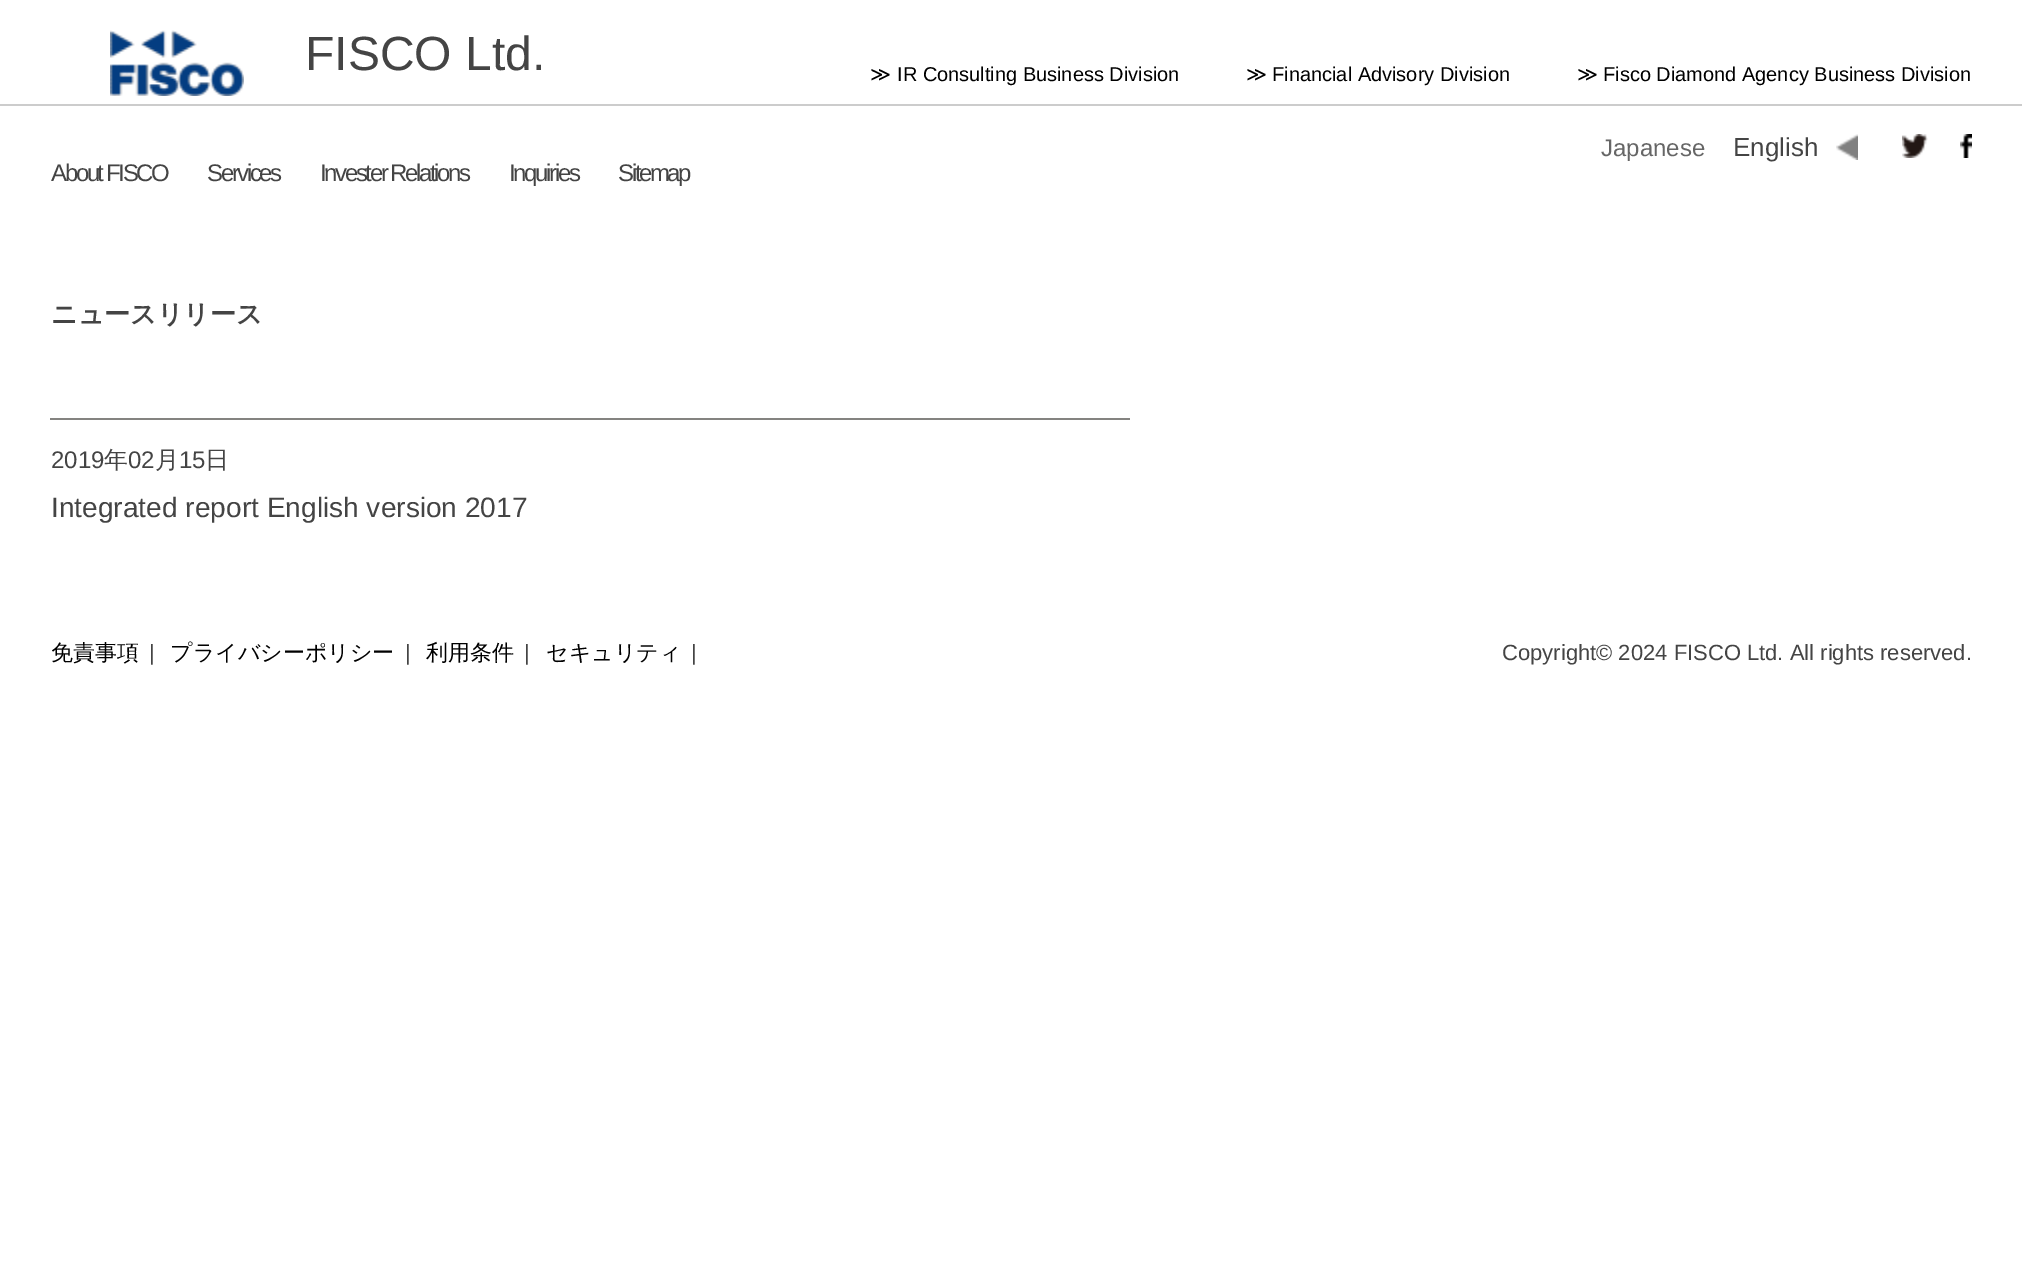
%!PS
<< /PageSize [2022 1288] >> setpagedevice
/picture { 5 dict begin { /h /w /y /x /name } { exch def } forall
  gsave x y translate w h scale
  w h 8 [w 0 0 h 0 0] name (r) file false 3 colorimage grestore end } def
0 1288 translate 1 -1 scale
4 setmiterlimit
1 setgray
0 0 2022 1288 rectfill
(img1.rgb) 110 30 134 66 picture
/LiberationSans-Regular [48 0 0 -48 0 0] selectfont
0.267 setgray
305 70 moveto (FISCO Ltd.) show
/DejaVuSans-Regular [20 0 0 -20 0 0] selectfont
0 setgray
870 81 moveto (≫) show
/LiberationSans-Regular [20 0 0 -20 0 0] selectfont
897 81 moveto (IR Consulting Business Division) show
/DejaVuSans-Regular [20 0 0 -20 0 0] selectfont
1246 81 moveto (≫) show
/LiberationSans-Regular [20 0 0 -20 0 0] selectfont
1272 81 moveto (Financial Advisory Division) show
/DejaVuSans-Regular [20 0 0 -20 0 0] selectfont
1577 81 moveto (≫) show
/LiberationSans-Regular [20 0 0 -20 0 0] selectfont
1603 81 moveto (Fisco Diamond Agency Business Division) show
0.8 setgray
0 104 2022 2 rectfill
(img2.rgb) 1836 134 22 26 picture
/LiberationSans-Regular [24 0 0 -24 0 0] selectfont
0.4 setgray
1601 156 moveto (Japanese) show
/LiberationSans-Regular [26 0 0 -26 0 0] selectfont
0.267 setgray
1733 156 moveto (English) show
(img3.rgb) 1902 134 26 24 picture
(img4.rgb) 1960 134 12 24 picture
/LiberationSans-Regular [24 0 0 -24 0 0] selectfont
51 181 moveto -2.4 0 (About FISCO) ashow
207 181 moveto -2.4 0 (Services) ashow
320 181 moveto -2.4 0 (Invester Relations) ashow
509 181 moveto -2.4 0 (Inquiries) ashow
618 181 moveto -2.4 0 (Sitemap) ashow
/WenQuanYiZenHei-Bold [26 0 0 -26 0 0] selectfont
51 323 moveto (ニュースリリース) show
0.518 0.514 0.502 setrgbcolor
50 418 1080 2 rectfill
/LiberationSans-Regular [24 0 0 -24 0 0] selectfont
0.267 setgray
51 468 moveto (2019) show
/WenQuanYiZenHei-Medium [24 0 0 -24 0 0] selectfont
104 468 moveto (年) show
/LiberationSans-Regular [24 0 0 -24 0 0] selectfont
128 468 moveto (02) show
/WenQuanYiZenHei-Medium [24 0 0 -24 0 0] selectfont
155 468 moveto (月) show
/LiberationSans-Regular [24 0 0 -24 0 0] selectfont
179 468 moveto (15) show
/WenQuanYiZenHei-Medium [24 0 0 -24 0 0] selectfont
205 468 moveto (日) show
/LiberationSans-Regular [28.1 0 0 -28.1 0 0] selectfont
51 517 moveto (Integrated report English version 2017) show
/WenQuanYiZenHei-Medium [22 0 0 -22 0 0] selectfont
0 setgray
51 660 moveto (免責事項) show
/LiberationSans-Regular [22 0 0 -22 0 0] selectfont
0.267 setgray
149 660 moveto (|) show
/WenQuanYiZenHei-Medium [22 0 0 -22 0 0] selectfont
0 setgray
170 660 moveto (プライバシーポリシー) show
/LiberationSans-Regular [22 0 0 -22 0 0] selectfont
0.267 setgray
405 660 moveto (|) show
/WenQuanYiZenHei-Medium [22 0 0 -22 0 0] selectfont
0 setgray
426 660 moveto (利用条件) show
/LiberationSans-Regular [22 0 0 -22 0 0] selectfont
0.267 setgray
524 660 moveto (|) show
/WenQuanYiZenHei-Medium [22 0 0 -22 0 0] selectfont
0 setgray
546 660 moveto (セキュリティ) show
/LiberationSans-Regular [22 0 0 -22 0 0] selectfont
0.267 setgray
691 660 moveto (|) show
1502 660 moveto (Copyright© 2024 FISCO Ltd. All rights reserved.) show
showpage
